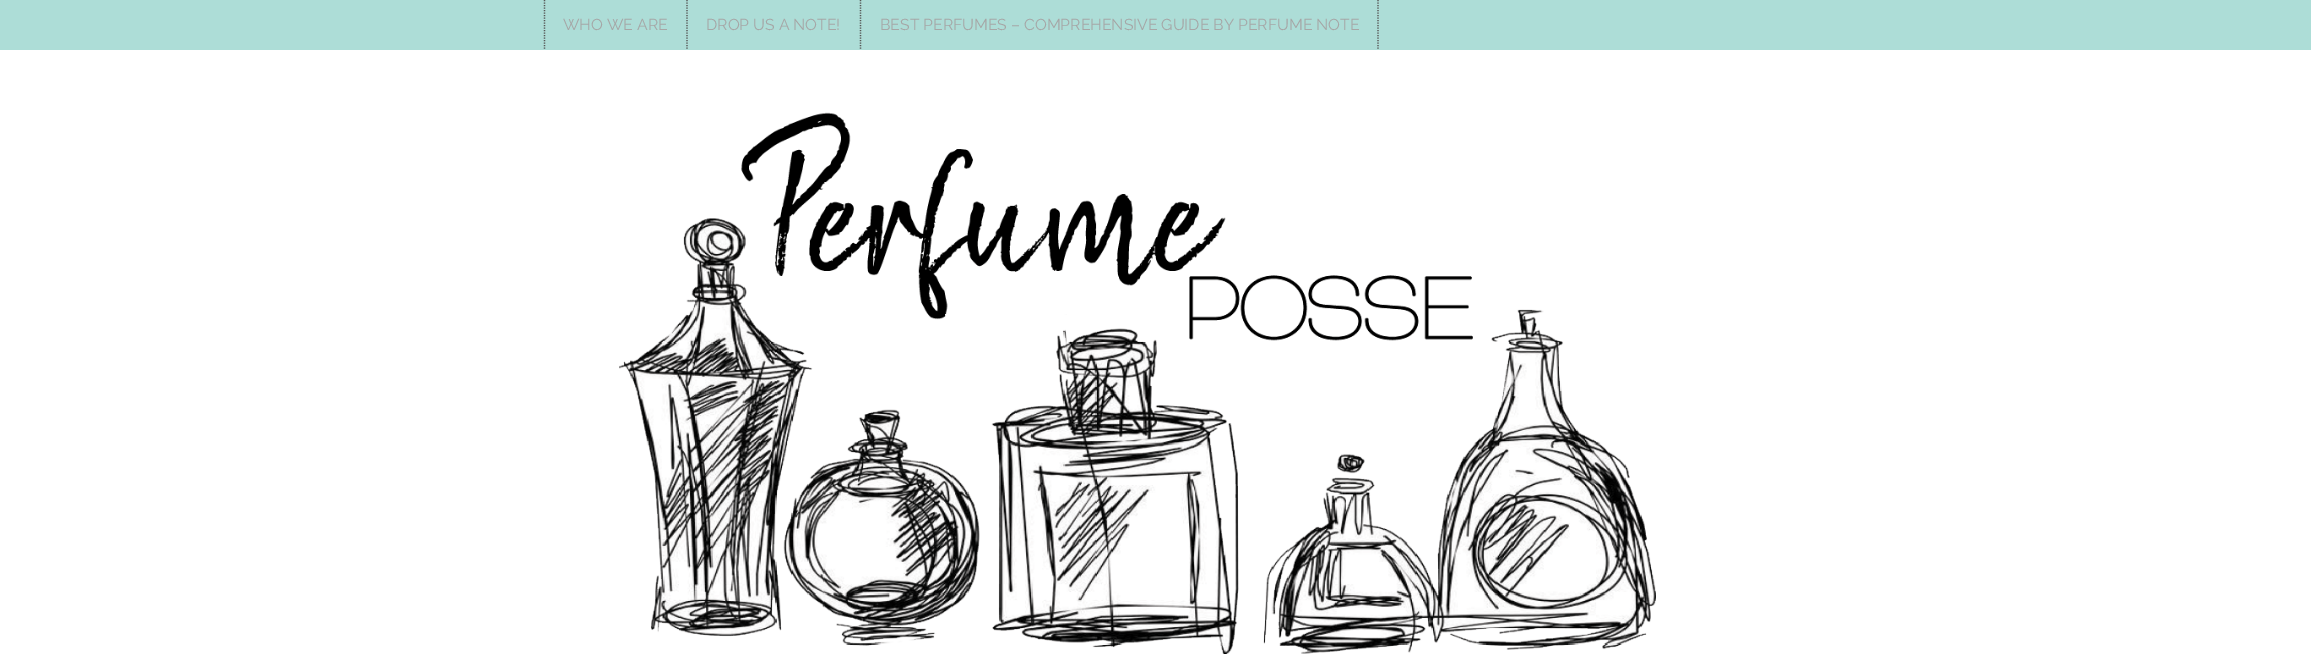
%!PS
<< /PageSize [2311 654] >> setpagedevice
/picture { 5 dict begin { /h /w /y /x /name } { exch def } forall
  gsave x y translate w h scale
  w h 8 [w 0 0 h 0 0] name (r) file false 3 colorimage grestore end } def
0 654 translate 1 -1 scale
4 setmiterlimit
1 setgray
0 0 2311 654 rectfill
0.678 0.867 0.843 setrgbcolor
0 0 2311 50 rectfill
0.337 setgray
1.2 setlinewidth
[1.25 1.25] 0 setdash
newpath 544.5 0 moveto 544.5 50 lineto stroke
newpath 687 0 moveto 687 50 lineto stroke
/Raleway-Regular [15.75 0 0 -15.75 0 0] selectfont
0.651 setgray
563 30 moveto (WHO WE ARE) show
0.337 setgray
newpath 860.5 0 moveto 860.5 50 lineto stroke
0.651 setgray
706 30 moveto (DROP US A NOTE!) show
0.337 setgray
newpath 1378 0 moveto 1378 50 lineto stroke
0.651 setgray
880 30 moveto (BEST PERFUMES – COMPREHENSIVE GUIDE BY PERFUME NOTE) show
(img1.rgb) 619 112 1037 542 picture
showpage
